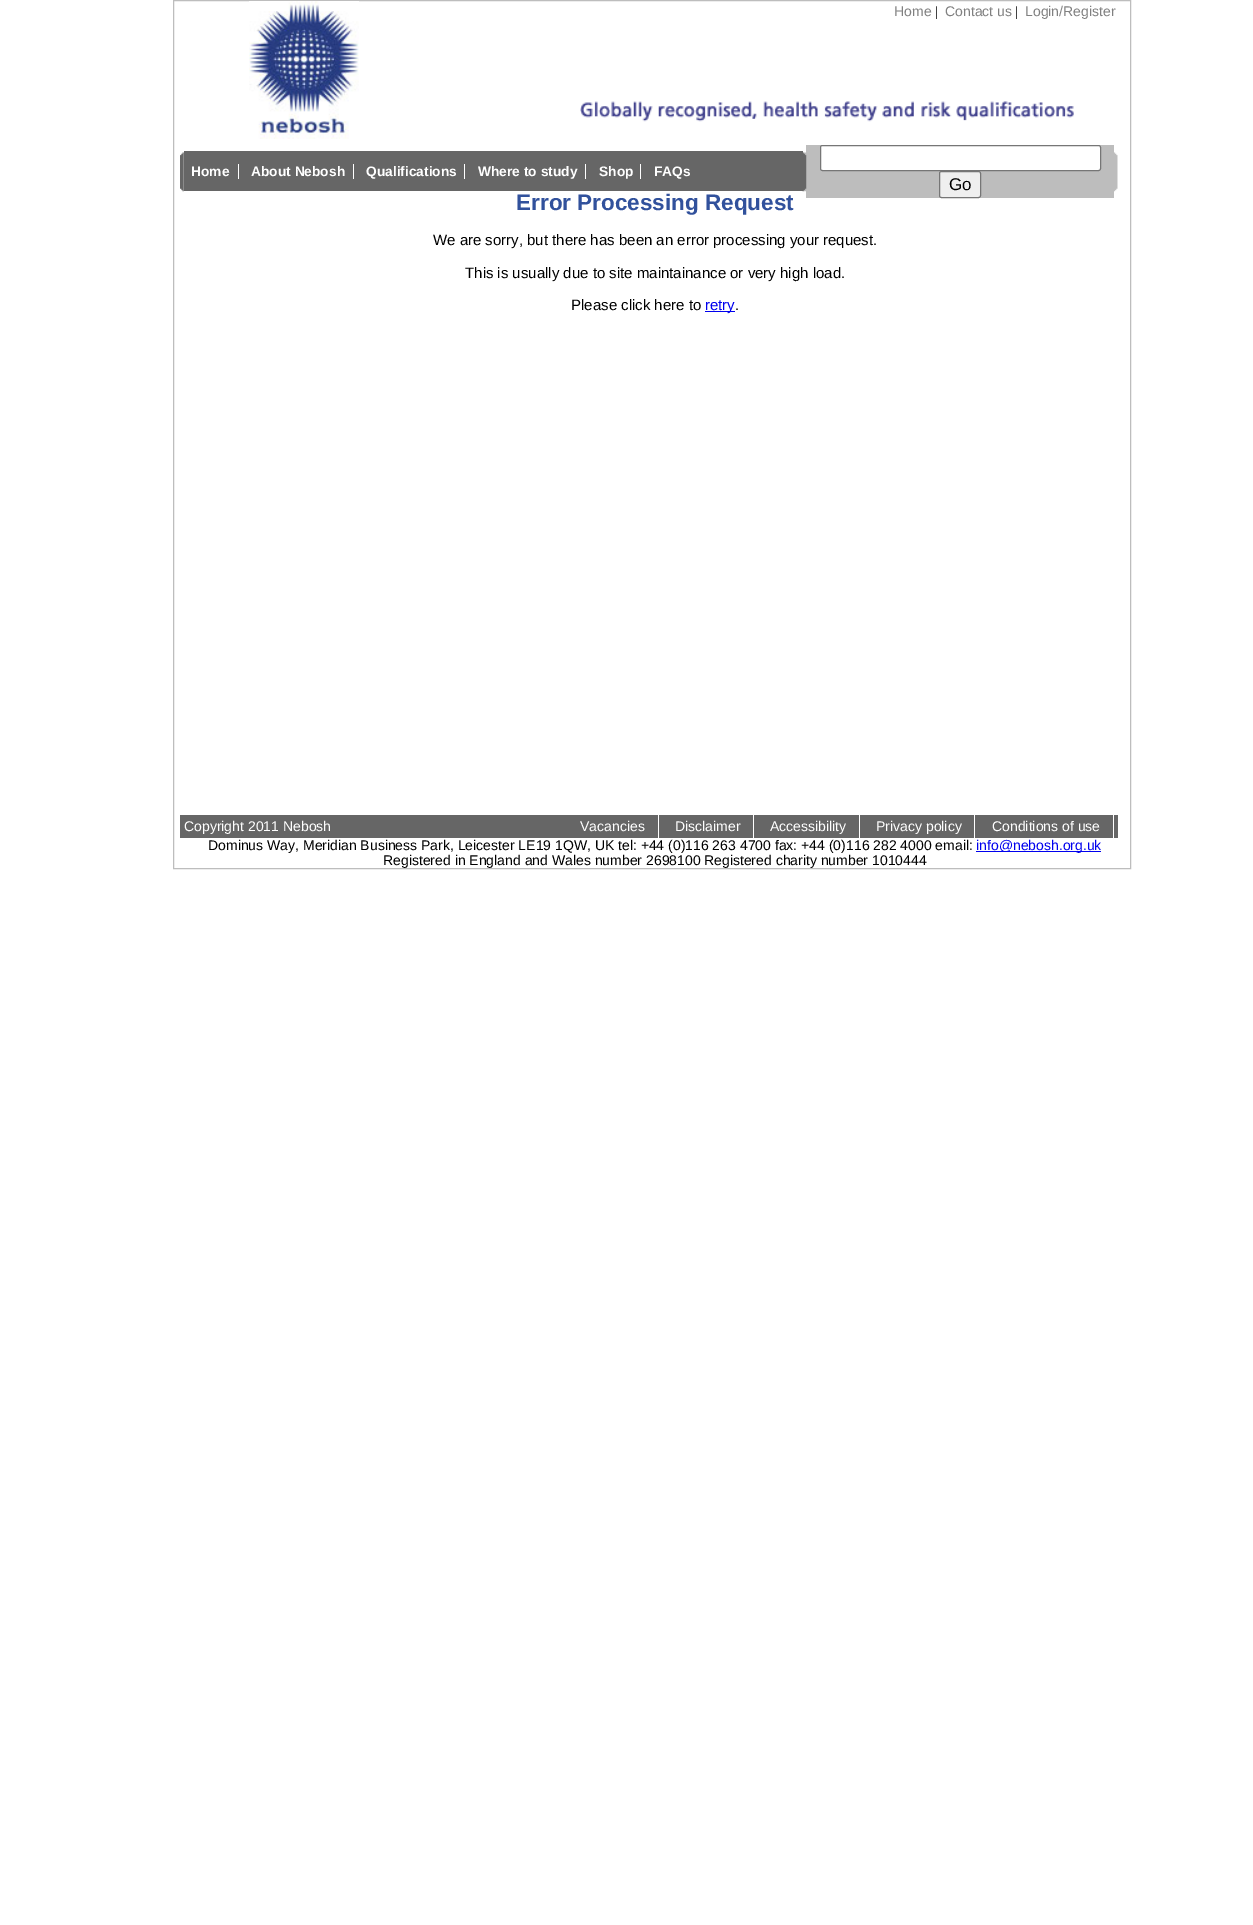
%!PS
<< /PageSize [1253 1925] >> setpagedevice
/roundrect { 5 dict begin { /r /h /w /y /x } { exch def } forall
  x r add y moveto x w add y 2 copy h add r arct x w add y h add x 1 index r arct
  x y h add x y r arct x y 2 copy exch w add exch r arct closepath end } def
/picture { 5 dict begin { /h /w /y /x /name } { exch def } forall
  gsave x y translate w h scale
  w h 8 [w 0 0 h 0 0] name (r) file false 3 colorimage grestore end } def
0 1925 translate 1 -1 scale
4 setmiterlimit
1 setgray
0 0 1253 1925 rectfill
0.741 setgray
173.5 0.5 957 868 rectstroke
(img1.rgb) 249 1 110 138 picture
/LiberationSans-Regular [14 0 0 -14 0 0] selectfont
0.502 setgray
894 16 moveto (Home) show
/LiberationSerif-Regular [14 0 0 -14 0 0] selectfont
0 setgray
935 16 moveto (|) show
/LiberationSans-Regular [14 0 0 -14 0 0] selectfont
0.502 setgray
945 16 moveto (Contact us) show
/LiberationSerif-Regular [14 0 0 -14 0 0] selectfont
0 setgray
1015 16 moveto (|) show
/LiberationSans-Regular [14 0 0 -14 0 0] selectfont
0.502 setgray
1025 16 moveto (Login/Register) show
(img2.rgb) 580 101 494 21 picture
(img3.rgb) 180 152 4 40 picture
0.4 setgray
184 151 619 40 rectfill
/LiberationSans-Bold [13.75 0 0 -13.75 0 0] selectfont
1 setgray
191 176 moveto (Home) show
238 164 1 15 rectfill
251 176 moveto (About Nebosh) show
353 164 1 15 rectfill
366 176 moveto (Qualifications) show
464 164 1 15 rectfill
478 176 moveto (Where to study) show
585 164 1 15 rectfill
599 176 moveto (Shop) show
640 164 1 15 rectfill
654 176 moveto (FAQs) show
0.741 setgray
806 145 308 53 rectfill
(img4.rgb) 802 152 5 40 picture
(img5.rgb) 1114 152 4 40 picture
1 setgray
820.5 145.5 280 25 2 roundrect gsave fill grestore
0.463 setgray
stroke
0.937 setgray
939.5 171.5 41 26 2 roundrect gsave fill grestore
0.463 setgray
stroke
/LiberationSans-Regular [17 0 0 -17 0 0] selectfont
0 setgray
949 190 moveto (Go) show
/LiberationSans-Bold [22.5 0 0 -22.5 0 0] selectfont
0.192 0.318 0.612 setrgbcolor
516 210 moveto (Error Processing Request) show
/LiberationSans-Regular [15 0 0 -15 0 0] selectfont
0 setgray
433 245 moveto (We are sorry, but there has been an error processing your request.) show
465 278 moveto (This is usually due to site maintainance or very high load.) show
571 310 moveto (Please click here to) show
0 0 0.933 setrgbcolor
705 311 30 1 rectfill
705 310 moveto (retry) show
0 setgray
735 310 moveto (.) show
0.4 setgray
180 815 938 23 rectfill
/LiberationSans-Regular [14 0 0 -14 0 0] selectfont
1 setgray
184 831 moveto (Copyright 2011 Nebosh) show
580 831 moveto (Vacancies) show
658 814 1 25 rectfill
675 831 moveto (Disclaimer) show
753 814 1 25 rectfill
770 831 moveto (Accessibility) show
859 814 1 25 rectfill
876 831 moveto (Privacy policy) show
974 814 1 25 rectfill
992 831 moveto (Conditions of use) show
1113 814 1 25 rectfill
0 setgray
208 850 moveto (Dominus Way, Meridian Business Park, Leicester LE19 1QW, UK tel: +44 \(0\)116 263 4700 fax: +44 \(0\)116 282 4000 email:) show
0 0 0.933 setrgbcolor
976 851 125 1 rectfill
976 850 moveto (info@nebosh.org.uk) show
0 setgray
383 865 moveto (Registered in England and Wales number 2698100) show
704 865 moveto (Registered charity number 1010444) show
showpage
